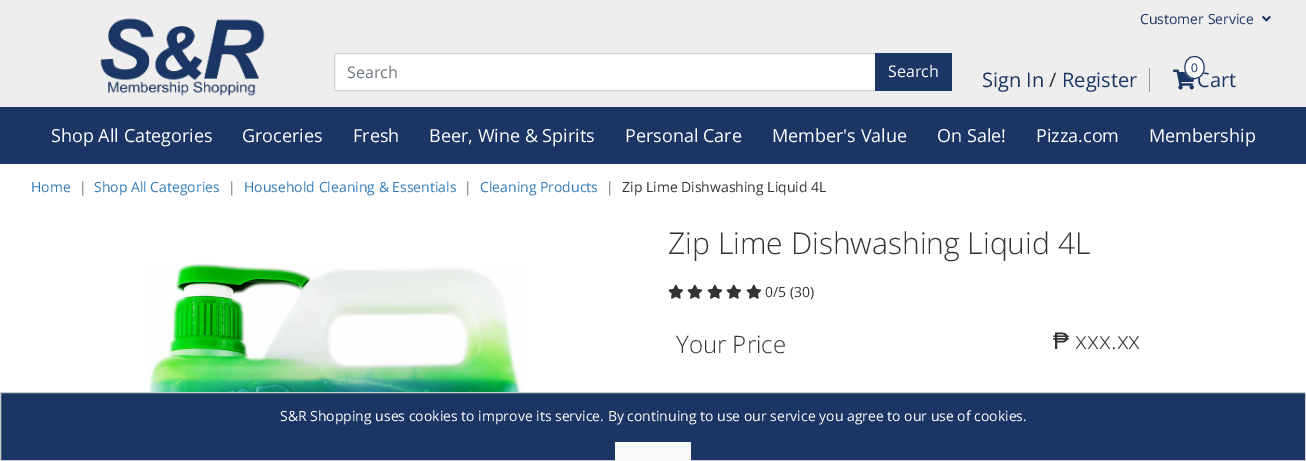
%!PS
<< /PageSize [1306 461] /PageUsesTransparency true >> setpagedevice
/alpha { dup .setfillconstantalpha .setstrokeconstantalpha } def
/picture { 5 dict begin { /h /w /y /x /name } { exch def } forall
  gsave x y translate w h scale
  w h 8 [w 0 0 h 0 0] name (r) file false 3 colorimage grestore end } def
0 .pushpdf14devicefilter
0 461 translate 1 -1 scale
4 setmiterlimit
1 setgray
0 0 1306 461 rectfill
0.933 setgray
0 0 1306 107 rectfill
(img1.rgb) 100 18 165 78 picture
/OpenSans-Regular [14 0 0 -14 0 0] selectfont
0.106 0.212 0.392 setrgbcolor
1140 24 moveto (Customer Service) show
(img2.rgb) 1262 16 9 6 picture
1 setgray
newpath 334.5 53.5 moveto 875.5 53.5 lineto 875.5 90.5 lineto 334.5 90.5 lineto closepath gsave fill grestore
0.808 0.831 0.855 setrgbcolor
stroke
/OpenSans-Regular [16 0 0 -16 0 0] selectfont
0.424 0.459 0.49 setrgbcolor
347 78 moveto (Search) show
0.106 0.212 0.392 setrgbcolor
875 53 77 38 rectfill
1 setgray
888 77 moveto (Search) show
/OpenSans-Regular [20 0 0 -20 0 0] selectfont
0.106 0.212 0.392 setrgbcolor
982 87 moveto (Sign In) show
0.2 setgray
1049 87 moveto (/) show
0.106 0.212 0.392 setrgbcolor
1062 87 moveto (Register) show
0.612 setgray
1149 68 1 24 rectfill
(img3.rgb) 1173 69 23 21 picture
0.106 0.212 0.392 setrgbcolor
1197 87 moveto (Cart) show
0.95 alpha
1 setgray
newpath 1194.5 56 moveto 1200.5 56 1205 61 1205 67.5 curveto 1205 74 1200.5 79 1194.5 79 curveto 1188.5 79 1184 74 1184 67.5 curveto 1184 61 1188.5 56 1194.5 56 curveto closepath fill
1 alpha
0.106 0.212 0.392 setrgbcolor
newpath 1194.5 56.5 moveto 1207.5 56.5 1207.5 78.5 1194.5 78.5 curveto 1181.5 78.5 1181.5 56.5 1194.5 56.5 curveto closepath stroke
/OpenSans-Regular [12 0 0 -12 0 0] selectfont
1191 72 moveto (0) show
0 107 1306 57 rectfill
/OpenSans-Regular [18 0 0 -18 0 0] selectfont
1 setgray
51 142 moveto (Shop All Categories) show
242 142 moveto (Groceries) show
353 142 moveto (Fresh) show
429 142 moveto (Beer, Wine & Spirits) show
625 142 moveto (Personal Care) show
772 142 moveto (Member's Value) show
937 142 moveto (On Sale!) show
1036 142 moveto (Pizza.com) show
1149 142 moveto (Membership) show
/OpenSans-Regular [14 0 0 -14 0 0] selectfont
0.2 0.478 0.718 setrgbcolor
31 192 moveto (Home) show
0.424 0.459 0.49 setrgbcolor
79 192 moveto (|) show
0.2 0.478 0.718 setrgbcolor
94 192 moveto (Shop All Categories) show
0.424 0.459 0.49 setrgbcolor
228 192 moveto (|) show
0.2 0.478 0.718 setrgbcolor
244 192 moveto (Household Cleaning & Essentials) show
0.424 0.459 0.49 setrgbcolor
464 192 moveto (|) show
0.2 0.478 0.718 setrgbcolor
480 192 moveto (Cleaning Products) show
0.424 0.459 0.49 setrgbcolor
606 192 moveto (|) show
0.2 setgray
622 192 moveto (Zip Lime Dishwashing Liquid 4L) show
(img4.rgb) 146 263 378 129 picture
/OpenSans-Light [30 0 0 -30 0 0] selectfont
668 254 moveto (Zip Lime Dishwashing Liquid 4L) show
(img5.rgb) 668 284 16 15 picture
(img5.rgb) 687 284 16 15 picture
(img5.rgb) 707 284 16 15 picture
(img5.rgb) 726 284 16 15 picture
(img5.rgb) 746 284 16 15 picture
/OpenSans-Regular [14 0 0 -14 0 0] selectfont
765 297 moveto (0/5 \(30\)) show
/OpenSans-Light [24 0 0 -24 0 0] selectfont
676 353 moveto (Your Price) show
/LiberationSans-Regular [24 0 0 -24 0 0] selectfont
1053 349 moveto (₱) show
/OpenSans-Light [24 0 0 -24 0 0] selectfont
1075 349 moveto (xxx.xx) show
0.106 0.212 0.392 setrgbcolor
newpath 0.5 392.5 moveto 1305.5 392.5 lineto 1305.5 460.5 lineto 0.5 460.5 lineto closepath gsave fill grestore
0.804 setgray
stroke
/OpenSans-Regular [14 0 0 -14 0 0] selectfont
1 setgray
280 421 moveto (S&R Shopping uses cookies to improve its service. By continuing to use our service you agree to our use of cookies.) show
0.973 0.976 0.98 setrgbcolor
615 442 76 19 rectfill
.poppdf14devicefilter showpage
